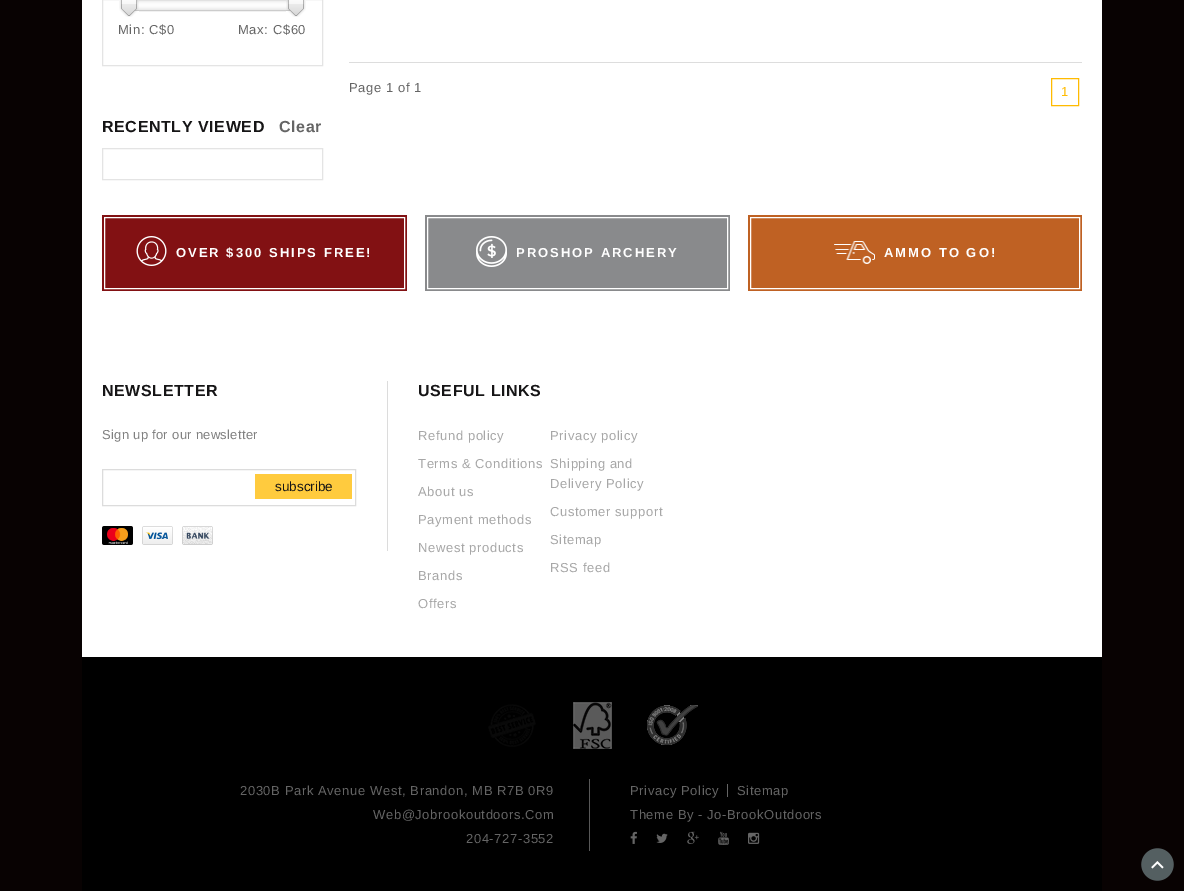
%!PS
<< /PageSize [1184 891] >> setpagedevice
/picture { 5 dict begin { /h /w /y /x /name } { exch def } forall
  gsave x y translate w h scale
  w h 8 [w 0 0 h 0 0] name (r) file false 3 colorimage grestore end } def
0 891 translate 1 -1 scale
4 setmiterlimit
0.031 0.008 0.008 setrgbcolor
0 0 1184 891 rectfill
1 setgray
82 0 1020 657 rectfill
0.894 setgray
102.5 -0.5 220 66 rectstroke
(img1.rgb) 135 0 155 10 picture
0.8 setgray
128.5 -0.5 168 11 rectstroke
(img2.rgb) 119 0 20 17 picture
(img3.rgb) 286 0 20 17 picture
/Arimo-Regular [13 0 0 -13 0 0] selectfont
0.396 setgray
118 34 moveto 0.6 0 (Min: C$0) ashow
238 34 moveto 0.6 0 (Max: C$60) ashow
/Arimo-Bold [16 0 0 -16 0 0] selectfont
0.086 0.082 0.086 setrgbcolor
102 132 moveto 0.6 0 (RECENTLY VIEWED) ashow
0.396 setgray
279 132 moveto 0.6 0 (Clear) ashow
0.894 setgray
102.5 148.5 220 31 rectstroke
0.867 setgray
349 62 733 1 rectfill
/Arimo-Regular [13 0 0 -13 0 0] selectfont
0.396 setgray
349 92 moveto 0.6 0 (Page 1 of 1) ashow
1 0.733 0.004 setrgbcolor
1051.5 78.5 27 27 rectstroke
1061 96 moveto 0.6 0 (1) ashow
0.51 0.067 0.075 setrgbcolor
102 215 305 76 rectfill
1 setgray
104.5 217.5 300 71 rectstroke
(img4.rgb) 136 236 31 30 picture
/Arimo-Bold [13 0 0 -13 0 0] selectfont
176 257 moveto 2 0 (OVER $300 SHIPS FREE!) ashow
0.537 0.541 0.549 setrgbcolor
425 215 305 76 rectfill
1 setgray
427.5 217.5 300 71 rectstroke
(img5.rgb) 476 236 31 31 picture
516 257 moveto 2 0 (PROSHOP ARCHERY) ashow
0.749 0.38 0.137 setrgbcolor
748 215 334 76 rectfill
1 setgray
750.5 217.5 329 71 rectstroke
(img6.rgb) 834 241 41 23 picture
884 257 moveto 2 0 (AMMO TO GO!) ashow
0.863 setgray
387 381 1 170 rectfill
/Arimo-Bold [16 0 0 -16 0 0] selectfont
0.086 0.082 0.086 setrgbcolor
102 396 moveto 0.6 0 (NEWSLETTER) ashow
/Arimo-Regular [13 0 0 -13 0 0] selectfont
0.502 setgray
102 439 moveto 0.3 0 (Sign up for our newsletter) ashow
0.863 setgray
102.5 469.5 253 36 rectstroke
1 0.796 0.243 setrgbcolor
255 474 97 25 rectfill
/LiberationSans-Regular [13.5 0 0 -13.5 0 0] selectfont
0.086 0.082 0.086 setrgbcolor
275 491 moveto (subscribe) show
(img7.rgb) 102 526 31 19 picture
(img8.rgb) 142 526 31 19 picture
(img9.rgb) 182 526 31 19 picture
/Arimo-Bold [16 0 0 -16 0 0] selectfont
418 396 moveto 0.6 0 (USEFUL LINKS) ashow
/Arimo-Regular [13 0 0 -13 0 0] selectfont
0.655 setgray
418 440 moveto 0.6 0 (Refund policy) ashow
418 468 moveto 0.6 0 (Terms & Conditions) ashow
418 496 moveto 0.6 0 (About us) ashow
418 524 moveto 0.6 0 (Payment methods) ashow
418 552 moveto 0.6 0 (Newest products) ashow
418 580 moveto 0.6 0 (Brands) ashow
418 608 moveto 0.6 0 (Offers) ashow
550 440 moveto 0.6 0 (Privacy policy) ashow
550 468 moveto 0.6 0 (Shipping and) ashow
550 488 moveto 0.6 0 (Delivery Policy) ashow
550 516 moveto 0.6 0 (Customer support) ashow
550 544 moveto 0.6 0 (Sitemap) ashow
550 572 moveto 0.6 0 (RSS feed) ashow
0 setgray
82 657 1020 234 rectfill
(img10.rgb) 488 704 48 43 picture
(img11.rgb) 573 702 39 47 picture
(img12.rgb) 647 705 51 40 picture
0.345 setgray
589 779 1 72 rectfill
0.396 setgray
240 795 moveto 0.6 0 (2030B Park Avenue West, Brandon, MB R7B 0R9) ashow
373 819 moveto 0.6 0 (Web@Jobrookoutdoors.Com) ashow
466 843 moveto 0.6 0 (204-727-3552) ashow
630 795 moveto 0.6 0 (Privacy Policy) ashow
727 784 1 13 rectfill
737 795 moveto 0.6 0 (Sitemap) ashow
630 819 moveto 0.6 0 (Theme By - Jo-BrookOutdoors) ashow
(img13.rgb) 630 831 7 13 picture
(img14.rgb) 656 833 12 10 picture
(img15.rgb) 687 831 12 13 picture
(img16.rgb) 718 831 11 14 picture
(img17.rgb) 748 832 12 12 picture
(img18.rgb) 1141 848 33 33 picture
showpage
